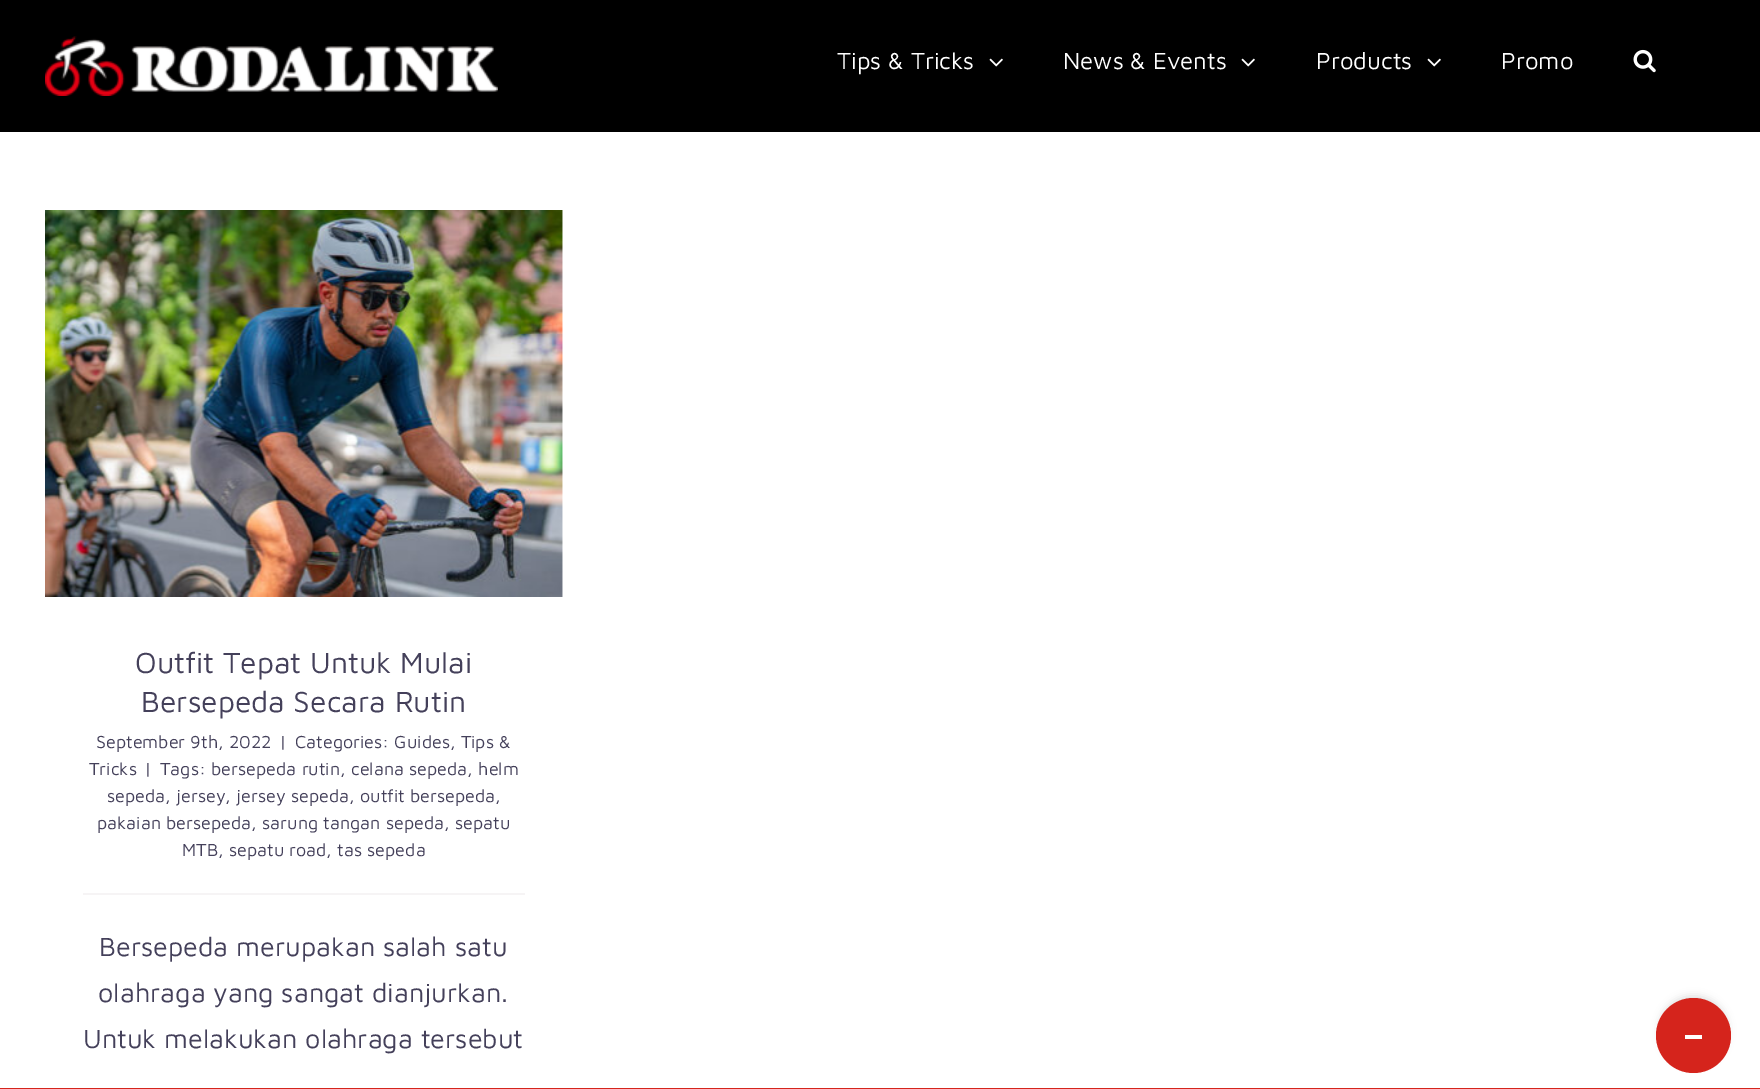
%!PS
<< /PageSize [1760 1089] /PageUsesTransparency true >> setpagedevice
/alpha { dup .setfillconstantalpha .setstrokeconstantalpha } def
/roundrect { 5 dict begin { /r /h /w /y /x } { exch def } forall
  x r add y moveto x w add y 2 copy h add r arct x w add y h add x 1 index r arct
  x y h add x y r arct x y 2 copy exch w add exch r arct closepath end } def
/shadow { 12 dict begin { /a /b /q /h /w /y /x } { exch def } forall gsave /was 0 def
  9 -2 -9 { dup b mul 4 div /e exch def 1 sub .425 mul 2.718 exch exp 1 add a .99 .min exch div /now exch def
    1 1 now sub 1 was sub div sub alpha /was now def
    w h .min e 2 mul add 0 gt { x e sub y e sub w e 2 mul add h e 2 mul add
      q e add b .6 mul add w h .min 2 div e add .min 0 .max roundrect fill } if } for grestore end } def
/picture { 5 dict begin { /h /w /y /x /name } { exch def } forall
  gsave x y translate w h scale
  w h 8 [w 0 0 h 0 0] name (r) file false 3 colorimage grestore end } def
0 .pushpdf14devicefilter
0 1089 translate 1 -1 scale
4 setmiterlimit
1 setgray
0 0 1760 1089 rectfill
0 setgray
0 0 1760 132 rectfill
(img1.rgb) 45 36 453 60 picture
/MavenPro-Regular [24 0 0 -24 0 0] selectfont
1 setgray
837 69 moveto (Tips & Tricks) show
(img2.rgb) 989 58 14 9 picture
1063 69 moveto (News & Events) show
(img2.rgb) 1241 58 14 9 picture
1316 69 moveto (Products) show
(img2.rgb) 1427 58 14 9 picture
1501 69 moveto (Promo) show
(img3.rgb) 1633 49 23 24 picture
(img4.rgb) 45 210 518 387 picture
/MavenPro-Regular [30 0 0 -30 0 0] selectfont
0.267 0.251 0.353 setrgbcolor
135 673 moveto (Outfit Tepat Untuk Mulai) show
141 712 moveto (Bersepeda Secara Rutin) show
/MavenPro-Regular [18 0 0 -18 0 0] selectfont
96 748 moveto (September 9th, 2022) show
279 748 moveto (|) show
295 748 moveto (Categories: Guides, Tips &) show
89 775 moveto (Tricks) show
144 775 moveto (|) show
160 775 moveto (Tags: bersepeda rutin, celana sepeda, helm) show
107 802 moveto (sepeda, jersey, jersey sepeda, outfit bersepeda,) show
97 829 moveto (pakaian bersepeda, sarung tangan sepeda, sepatu) show
182 856 moveto (MTB, sepatu road, tas sepeda) show
0.965 0.957 0.961 setrgbcolor
83 893 442 2 rectfill
/MavenPro-Regular [27 0 0 -27 0 0] selectfont
0.267 0.251 0.353 setrgbcolor
99 956 moveto (Bersepeda merupakan salah satu) show
98 1002 moveto (olahraga yang sangat dianjurkan.) show
83 1048 moveto (Untuk melakukan olahraga tersebut) show
0 setgray
1659 996 69 69 34.5 4 0.14 shadow
0.835 0.141 0.11 setrgbcolor
newpath 1693.5 1035.5 37.5 0 360 arc closepath fill
1 setgray
1685 1035 17 4 rectfill
0.835 0.141 0.11 setrgbcolor
0 1088 1760 1 rectfill
.poppdf14devicefilter showpage
